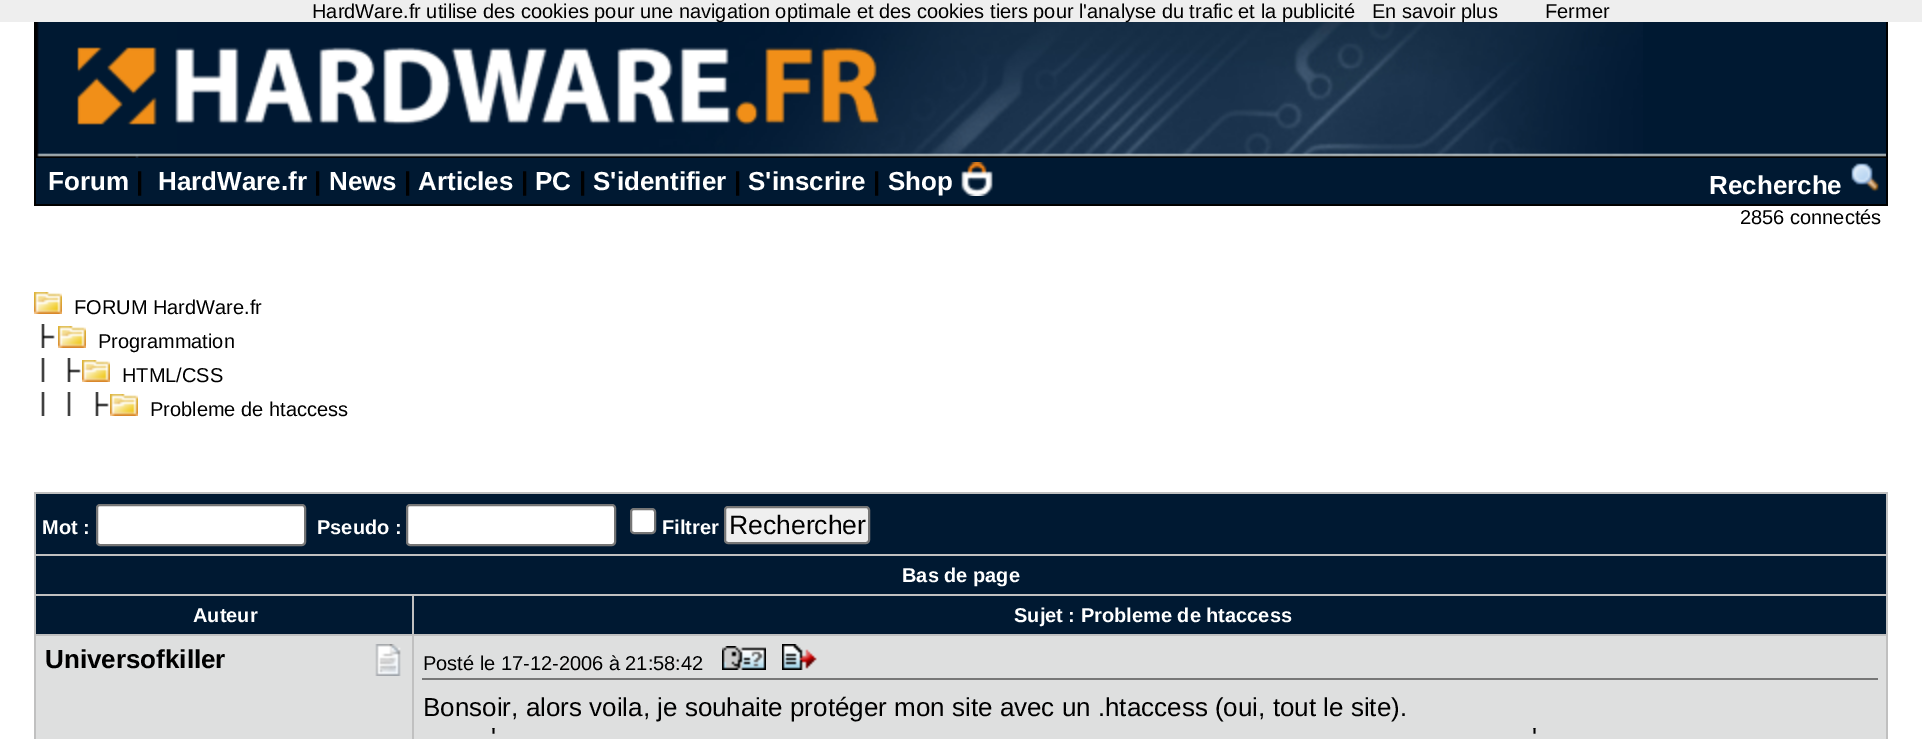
%!PS
<< /PageSize [1922 739] >> setpagedevice
/roundrect { 5 dict begin { /r /h /w /y /x } { exch def } forall
  x r add y moveto x w add y 2 copy h add r arct x w add y h add x 1 index r arct
  x y h add x y r arct x y 2 copy exch w add exch r arct closepath end } def
/picture { 5 dict begin { /h /w /y /x /name } { exch def } forall
  gsave x y translate w h scale
  w h 8 [w 0 0 h 0 0] name (r) file false 3 colorimage grestore end } def
0 739 translate 1 -1 scale
4 setmiterlimit
1 setgray
0 0 1922 739 rectfill
0.933 setgray
0 0 1922 22 rectfill
0 setgray
34 22 1854 184 rectfill
(img2.rgb) 36 22 1607 136 picture
/LiberationSans-Regular [20 0 0 -20 0 0] selectfont
312 18 moveto (HardWare.fr utilise des cookies pour une navigation optimale et des cookies tiers pour l'analyse du trafic et la publicité) show
1372 18 moveto (En savoir plus) show
1545 18 moveto (Fermer) show
(img1.rgb) 1643 22 243 135 picture
0 0.098 0.196 setrgbcolor
36 158 1850 46 rectfill
/LiberationSans-Bold [26 0 0 -26 0 0] selectfont
1 setgray
48 190 moveto (Forum) show
0 setgray
136 190 moveto (|) show
1 setgray
158 190 moveto (HardWare.fr) show
0 setgray
314 190 moveto (|) show
1 setgray
329 190 moveto (News) show
0 setgray
404 190 moveto (|) show
1 setgray
418 190 moveto (Articles) show
0 setgray
521 190 moveto (|) show
1 setgray
535 190 moveto (PC) show
0 setgray
579 190 moveto (|) show
1 setgray
593 190 moveto (S'identifier) show
0 setgray
734 190 moveto (|) show
1 setgray
748 190 moveto (S'inscrire) show
0 setgray
873 190 moveto (|) show
1 setgray
888 190 moveto (Shop) show
(img3.rgb) 961 162 32 34 picture
1709 194 moveto (Recherche) show
(img4.rgb) 1851 163 28 29 picture
/LiberationSans-Regular [20 0 0 -20 0 0] selectfont
0 setgray
1740 224 moveto (2856 connectés) show
(img5.rgb) 34 292 28 22 picture
74 314 moveto (FORUM HardWare.fr) show
(img6.rgb) 41 324 14 24 picture
(img5.rgb) 58 326 28 22 picture
98 348 moveto (Programmation) show
(img7.rgb) 41 358 40 24 picture
(img5.rgb) 82 360 28 22 picture
122 382 moveto (HTML/CSS) show
(img8.rgb) 41 392 68 24 picture
(img5.rgb) 110 394 28 22 picture
150 416 moveto (Probleme de htaccess) show
0.753 setgray
34 492 1854 2 rectfill
1886 492 2 247 rectfill
0 0.098 0.196 setrgbcolor
36 494 1850 60 rectfill
0.753 setgray
34 554 1852 2 rectfill
34 494 2 62 rectfill
/LiberationSans-Bold [20 0 0 -20 0 0] selectfont
1 setgray
42 534 moveto (Mot :) show
97 505 208 40 3 roundrect gsave fill grestore
0.463 setgray
2 setlinewidth
stroke
1 setgray
317 534 moveto (Pseudo :) show
407 505 208 40 3 roundrect gsave fill grestore
0.463 setgray
stroke
1 setgray
631 509 24 24 3 roundrect gsave fill grestore
0.463 setgray
stroke
1 setgray
662 534 moveto (Filtrer) show
0.937 setgray
725 507 144 36 3 roundrect gsave fill grestore
0.463 setgray
stroke
/LiberationSans-Regular [26.5 0 0 -26.5 0 0] selectfont
0 setgray
729 534 moveto (Rechercher) show
0 0.098 0.196 setrgbcolor
36 556 1850 38 rectfill
0.753 setgray
34 594 1852 2 rectfill
34 556 2 40 rectfill
/LiberationSans-Bold [20 0 0 -20 0 0] selectfont
1 setgray
902 582 moveto (Bas de page) show
0 0.098 0.196 setrgbcolor
36 596 1850 38 rectfill
0.753 setgray
34 634 1852 2 rectfill
34 596 2 143 rectfill
1 setgray
193 622 moveto (Auteur) show
0.753 setgray
412 596 2 40 rectfill
1 setgray
1014 622 moveto (Sujet : Probleme de htaccess) show
0.871 0.875 0.875 setrgbcolor
36 636 1850 103 rectfill
/LiberationSans-Bold [26 0 0 -26 0 0] selectfont
0 setgray
45 668 moveto (Universofkiller) show
(img9.rgb) 375 644 26 32 picture
0.753 setgray
412 636 2 103 rectfill
0.467 setgray
422 678 1456 2 rectfill
/LiberationSans-Regular [20 0 0 -20 0 0] selectfont
0 setgray
423 670 moveto (Posté le 17-12-2006 à 21:58:42) show
(img10.rgb) 722 646 44 24 picture
(img11.rgb) 782 644 35 26 picture
/LiberationSans-Regular [26 0 0 -26 0 0] selectfont
423 716 moveto (Bonsoir, alors voila, je souhaite protéger mon site avec un .htaccess \(oui, tout le site\).) show
491 746 moveto (') show
1532 746 moveto (') show
showpage
